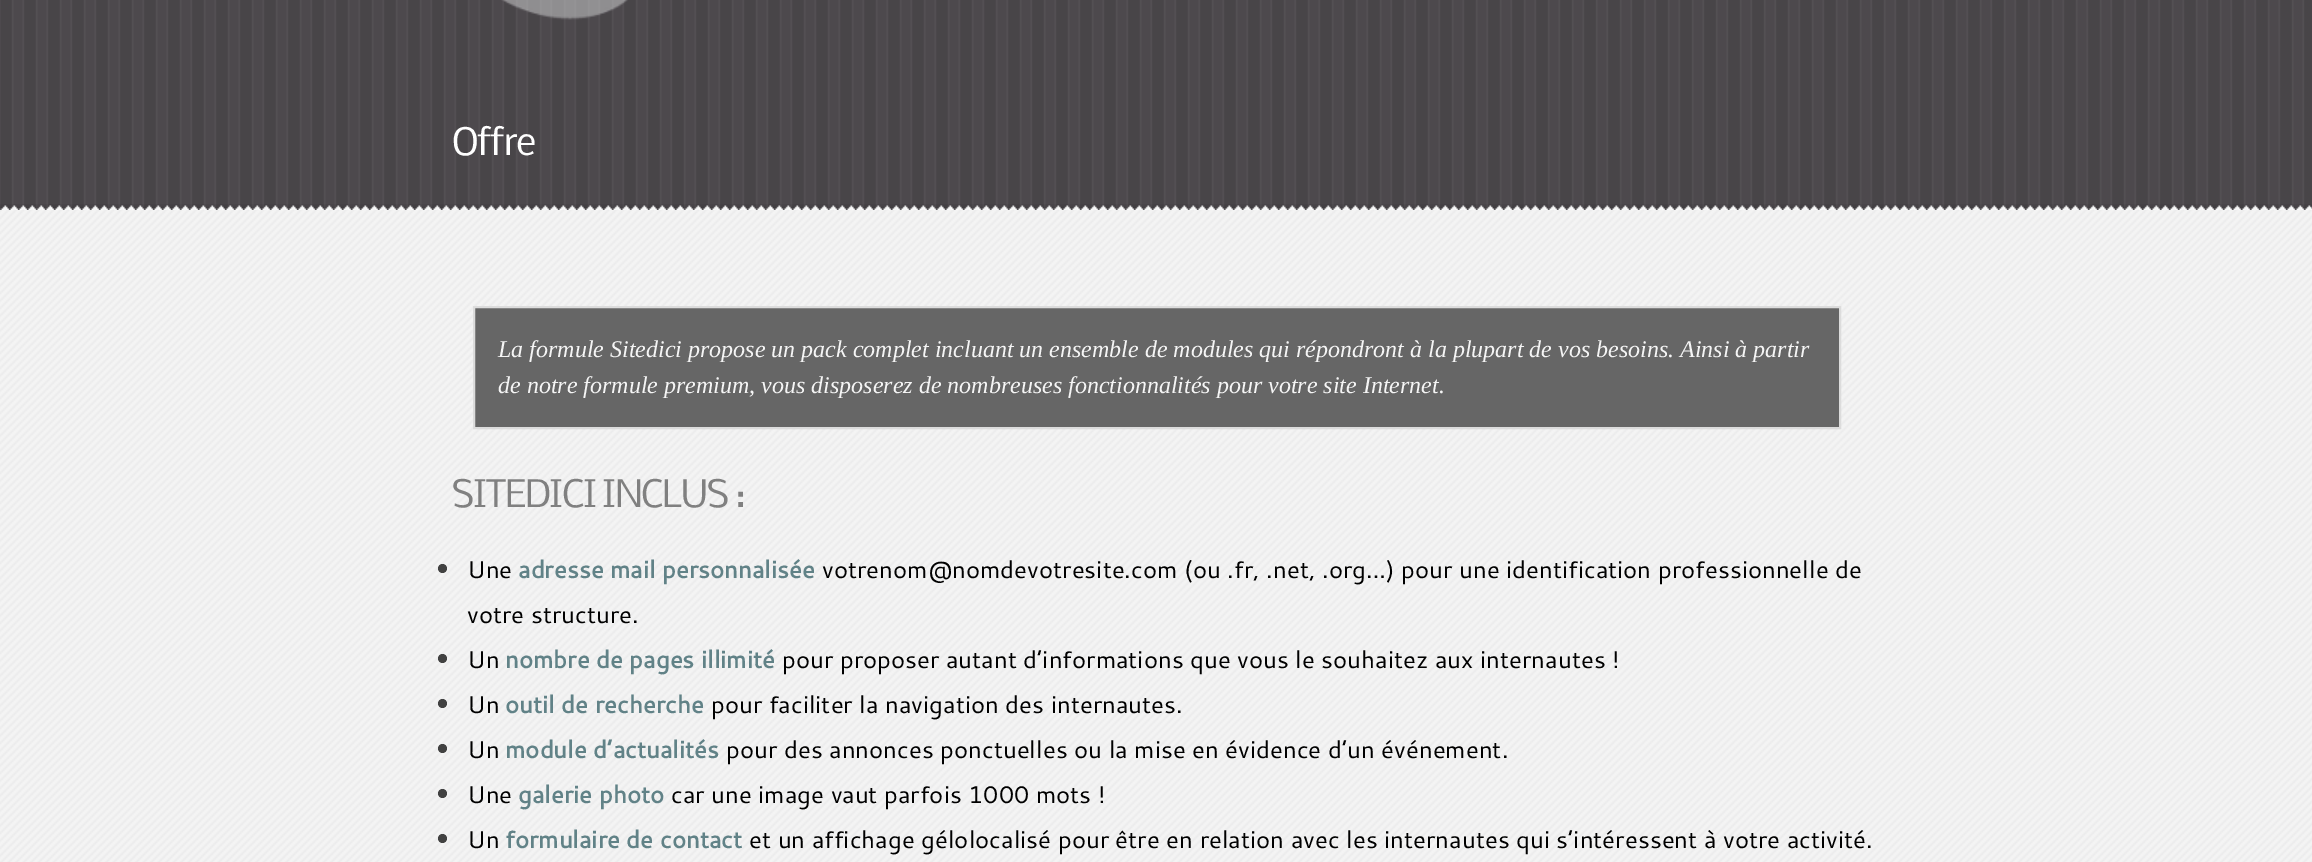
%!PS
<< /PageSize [2312 862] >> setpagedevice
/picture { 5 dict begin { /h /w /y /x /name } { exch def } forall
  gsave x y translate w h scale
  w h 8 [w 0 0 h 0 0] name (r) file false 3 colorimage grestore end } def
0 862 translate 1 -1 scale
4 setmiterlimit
0.302 0.286 0.302 setrgbcolor
0 0 2312 862 rectfill
(img1.rgb) 1 0 2311 210 picture
(img2.rgb) 0 204 2312 6 picture
(img3.rgb) 501 0 127 20 picture
/Nobile-Regular [36 0 0 -36 0 0] selectfont
1 setgray
452 155 moveto -1.5 0 (Offre) ashow
(img4.rgb) 0 210 2312 652 picture
0.4 setgray
newpath 474 307 moveto 1840 307 lineto 1840 428 lineto 474 428 lineto closepath gsave fill grestore
0.863 setgray
2 setlinewidth
stroke
/LiberationSerif-Italic [24 0 0 -24 0 0] selectfont
0.961 setgray
498 357 moveto (La formule Sitedici propose un pack complet incluant un ensemble de modules qui répondront à la plupart de vos besoins. Ainsi à partir) show
498 393 moveto (de notre formule premium, vous disposerez de nombreuses fonctionnalités pour votre site Internet.) show
/Nobile-Regular [36 0 0 -36 0 0] selectfont
0.502 setgray
452 507 moveto -1.5 0 (SITEDICI INCLUS :) ashow
0.255 setgray
newpath 442.5 568.5 4.5 0 360 arc closepath fill
/Cantarell-Regular [24 0 0 -24 0 0] selectfont
0 setgray
467 578 moveto (Une) show
/Cantarell-Bold [24 0 0 -24 0 0] selectfont
0.38 0.51 0.529 setrgbcolor
518 578 moveto (adresse mail personnalisée) show
/Cantarell-Regular [24 0 0 -24 0 0] selectfont
0 setgray
822 578 moveto (votrenom@nomdevotresite.com \(ou .fr, .net, .org…\) pour une identification professionnelle de) show
467 623 moveto (votre structure.) show
0.255 setgray
newpath 442.5 658.5 4.5 0 360 arc closepath fill
0 setgray
467 668 moveto (Un) show
/Cantarell-Bold [24 0 0 -24 0 0] selectfont
0.38 0.51 0.529 setrgbcolor
505 668 moveto (nombre de pages illimité) show
/Cantarell-Regular [24 0 0 -24 0 0] selectfont
0 setgray
782 668 moveto (pour proposer autant d’informations que vous le souhaitez aux internautes !) show
0.255 setgray
newpath 442.5 703.5 4.5 0 360 arc closepath fill
0 setgray
467 713 moveto (Un) show
/Cantarell-Bold [24 0 0 -24 0 0] selectfont
0.38 0.51 0.529 setrgbcolor
505 713 moveto (outil de recherche) show
/Cantarell-Regular [24 0 0 -24 0 0] selectfont
0 setgray
711 713 moveto (pour faciliter la navigation des internautes.) show
0.255 setgray
newpath 442.5 748.5 4.5 0 360 arc closepath fill
0 setgray
467 758 moveto (Un) show
/Cantarell-Bold [24 0 0 -24 0 0] selectfont
0.38 0.51 0.529 setrgbcolor
505 758 moveto (module d’actualités) show
/Cantarell-Regular [24 0 0 -24 0 0] selectfont
0 setgray
726 758 moveto (pour des annonces ponctuelles ou la mise en évidence d’un événement.) show
0.255 setgray
newpath 442.5 793.5 4.5 0 360 arc closepath fill
0 setgray
467 803 moveto (Une) show
/Cantarell-Bold [24 0 0 -24 0 0] selectfont
0.38 0.51 0.529 setrgbcolor
518 803 moveto (galerie photo) show
/Cantarell-Regular [24 0 0 -24 0 0] selectfont
0 setgray
671 803 moveto (car une image vaut parfois 1000 mots !) show
0.255 setgray
newpath 442.5 838.5 4.5 0 360 arc closepath fill
0 setgray
467 848 moveto (Un) show
/Cantarell-Bold [24 0 0 -24 0 0] selectfont
0.38 0.51 0.529 setrgbcolor
505 848 moveto (formulaire de contact) show
/Cantarell-Regular [24 0 0 -24 0 0] selectfont
0 setgray
749 848 moveto (et un affichage gélolocalisé pour être en relation avec les internautes qui s’intéressent à votre activité.) show
showpage
